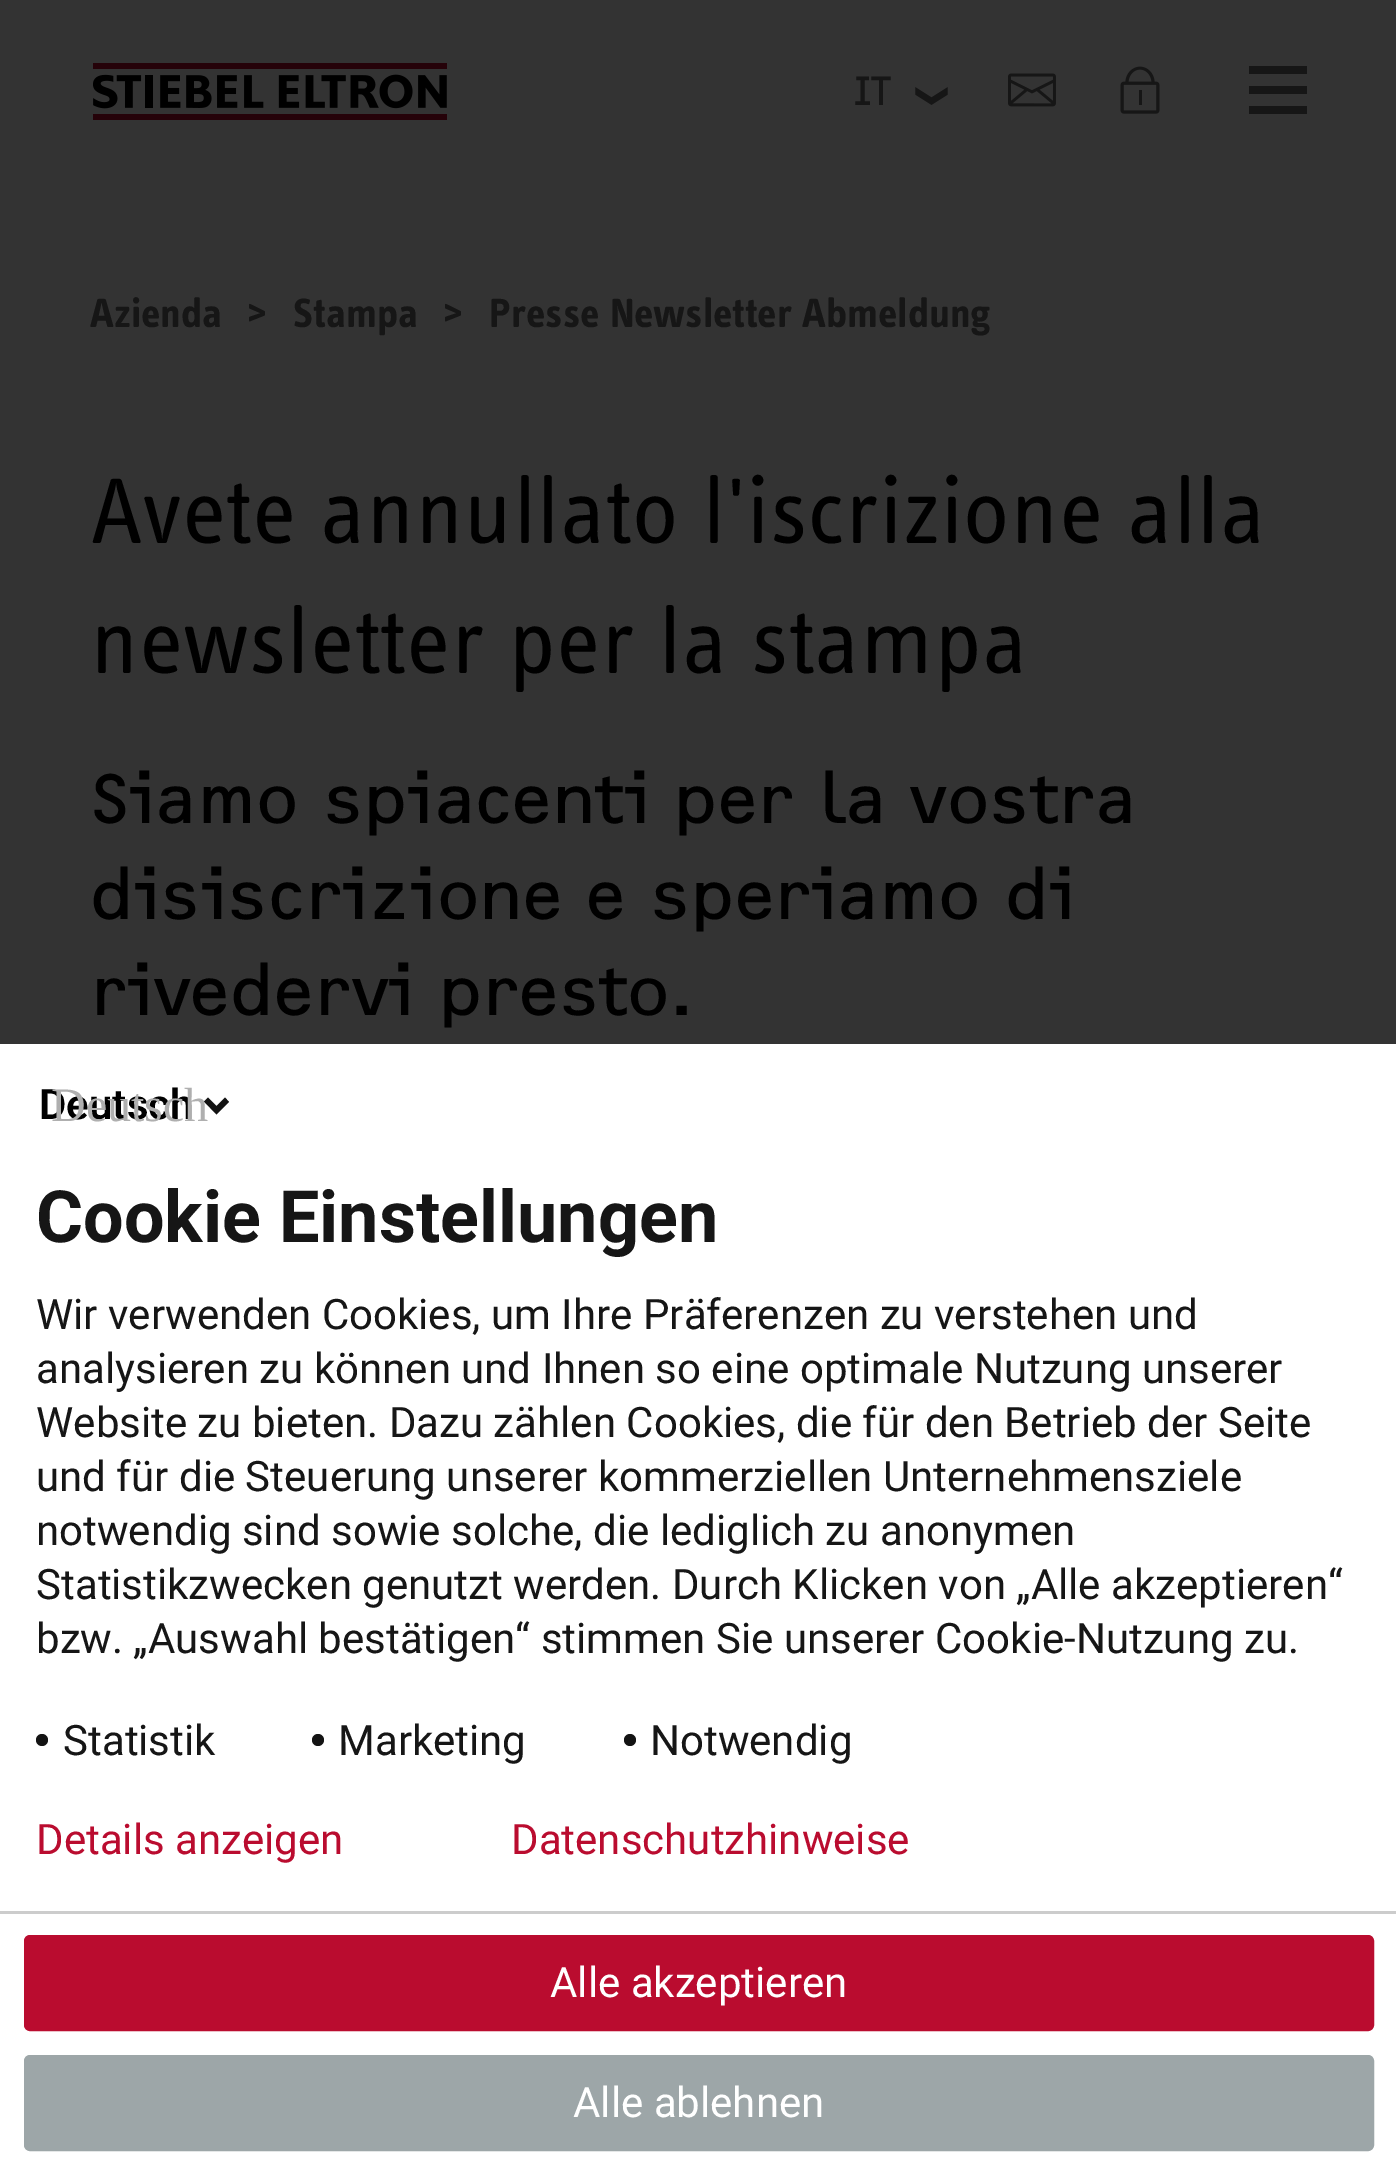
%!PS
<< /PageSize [1396 2175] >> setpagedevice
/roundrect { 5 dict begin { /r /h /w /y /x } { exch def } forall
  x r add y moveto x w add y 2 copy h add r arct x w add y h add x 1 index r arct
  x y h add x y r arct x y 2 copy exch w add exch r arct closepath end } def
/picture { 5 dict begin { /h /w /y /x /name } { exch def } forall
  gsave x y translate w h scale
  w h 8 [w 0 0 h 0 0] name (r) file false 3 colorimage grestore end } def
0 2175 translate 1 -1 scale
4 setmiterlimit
0.2 setgray
0 0 1396 2175 rectfill
(img1.rgb) 93 63 354 57 picture
/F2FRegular-Regular [42 0 0 -42 0 0] selectfont
0.086 setgray
855 105 moveto (IT) show
(img2.rgb) 915 87 33 18 picture
(img3.rgb) 1008 73 48 34 picture
(img4.rgb) 1120 66 40 48 picture
newpath 1249 66 moveto 1307 66 lineto 1307 74 lineto 1249 74 lineto closepath 1249 106 moveto 1307 106 lineto 1307 114 lineto 1249 114 lineto closepath 1249 86 moveto 1307 86 lineto 1307 94 lineto 1249 94 lineto closepath fill
/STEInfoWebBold-Bold [42 0 0 -42 0 0] selectfont
90 327 moveto (Azienda) show
247 327 moveto (>) show
293 327 moveto (Stampa) show
443 327 moveto (>) show
489 327 moveto (Presse Newsletter Abmeldung) show
/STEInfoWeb-Regular [96 0 0 -96 0 0] selectfont
0 setgray
90 543 moveto (Avete annullato l'iscrizione alla) show
90 673 moveto (newsletter per la stampa) show
/F2FRegular-Regular [72 0 0 -72 0 0] selectfont
90 823 moveto (Siamo spiacenti per la vostra) show
90 919 moveto (disiscrizione e speriamo di) show
90 1015 moveto (rivedervi presto.) show
1 setgray
0 1044 1396 1131 rectfill
/Roboto-SemiBold [42 0 0 -42 0 0] selectfont
0 setgray
39 1119 moveto (Deutsch) show
0.075 setgray
newpath 216.5 1106 moveto 225 1097.5 lineto 229 1102 lineto 216.5 1114.5 lineto 204 1101.5 lineto 208 1097.5 lineto closepath fill
/LiberationSerif-Regular [48 0 0 -48 0 0] selectfont
0.686 setgray
51 1121 moveto (Deutsch) show
/Roboto-Bold [72 0 0 -72 0 0] selectfont
0.086 setgray
36 1242 moveto (Cookie Einstellungen) show
/Roboto-Regular [42 0 0 -42 0 0] selectfont
36 1329 moveto (Wir verwenden Cookies, um Ihre Präferenzen zu verstehen und) show
36 1383 moveto (analysieren zu können und Ihnen so eine optimale Nutzung unserer) show
36 1437 moveto (Website zu bieten. Dazu zählen Cookies, die für den Betrieb der Seite) show
36 1491 moveto (und für die Steuerung unserer kommerziellen Unternehmensziele) show
36 1545 moveto (notwendig sind sowie solche, die lediglich zu anonymen) show
36 1599 moveto (Statistikzwecken genutzt werden. Durch Klicken von „Alle akzeptieren“) show
36 1653 moveto (bzw. „Auswahl bestätigen“ stimmen Sie unserer Cookie-Nutzung zu.) show
0.075 setgray
newpath 42 1740 6 0 360 arc closepath fill
0.086 setgray
63 1755 moveto (Statistik) show
0.075 setgray
newpath 318 1740 6 0 360 arc closepath fill
0.086 setgray
338 1755 moveto (Marketing) show
0.075 setgray
newpath 630 1740 6 0 360 arc closepath fill
0.086 setgray
650 1755 moveto (Notwendig) show
0.8 setgray
0 1911 1396 3 rectfill
0.729 0.047 0.184 setrgbcolor
25.5 1936.5 1347 93 4.5 roundrect gsave fill grestore
3 setlinewidth
stroke
1 setgray
550 1997 moveto (Alle akzeptieren) show
0.616 0.651 0.659 setrgbcolor
25.5 2056.5 1347 93 4.5 roundrect gsave fill grestore
stroke
1 setgray
573 2117 moveto (Alle ablehnen) show
0.729 0.047 0.184 setrgbcolor
36 1854 moveto (Details anzeigen) show
511 1854 moveto (Datenschutzhinweise) show
showpage
